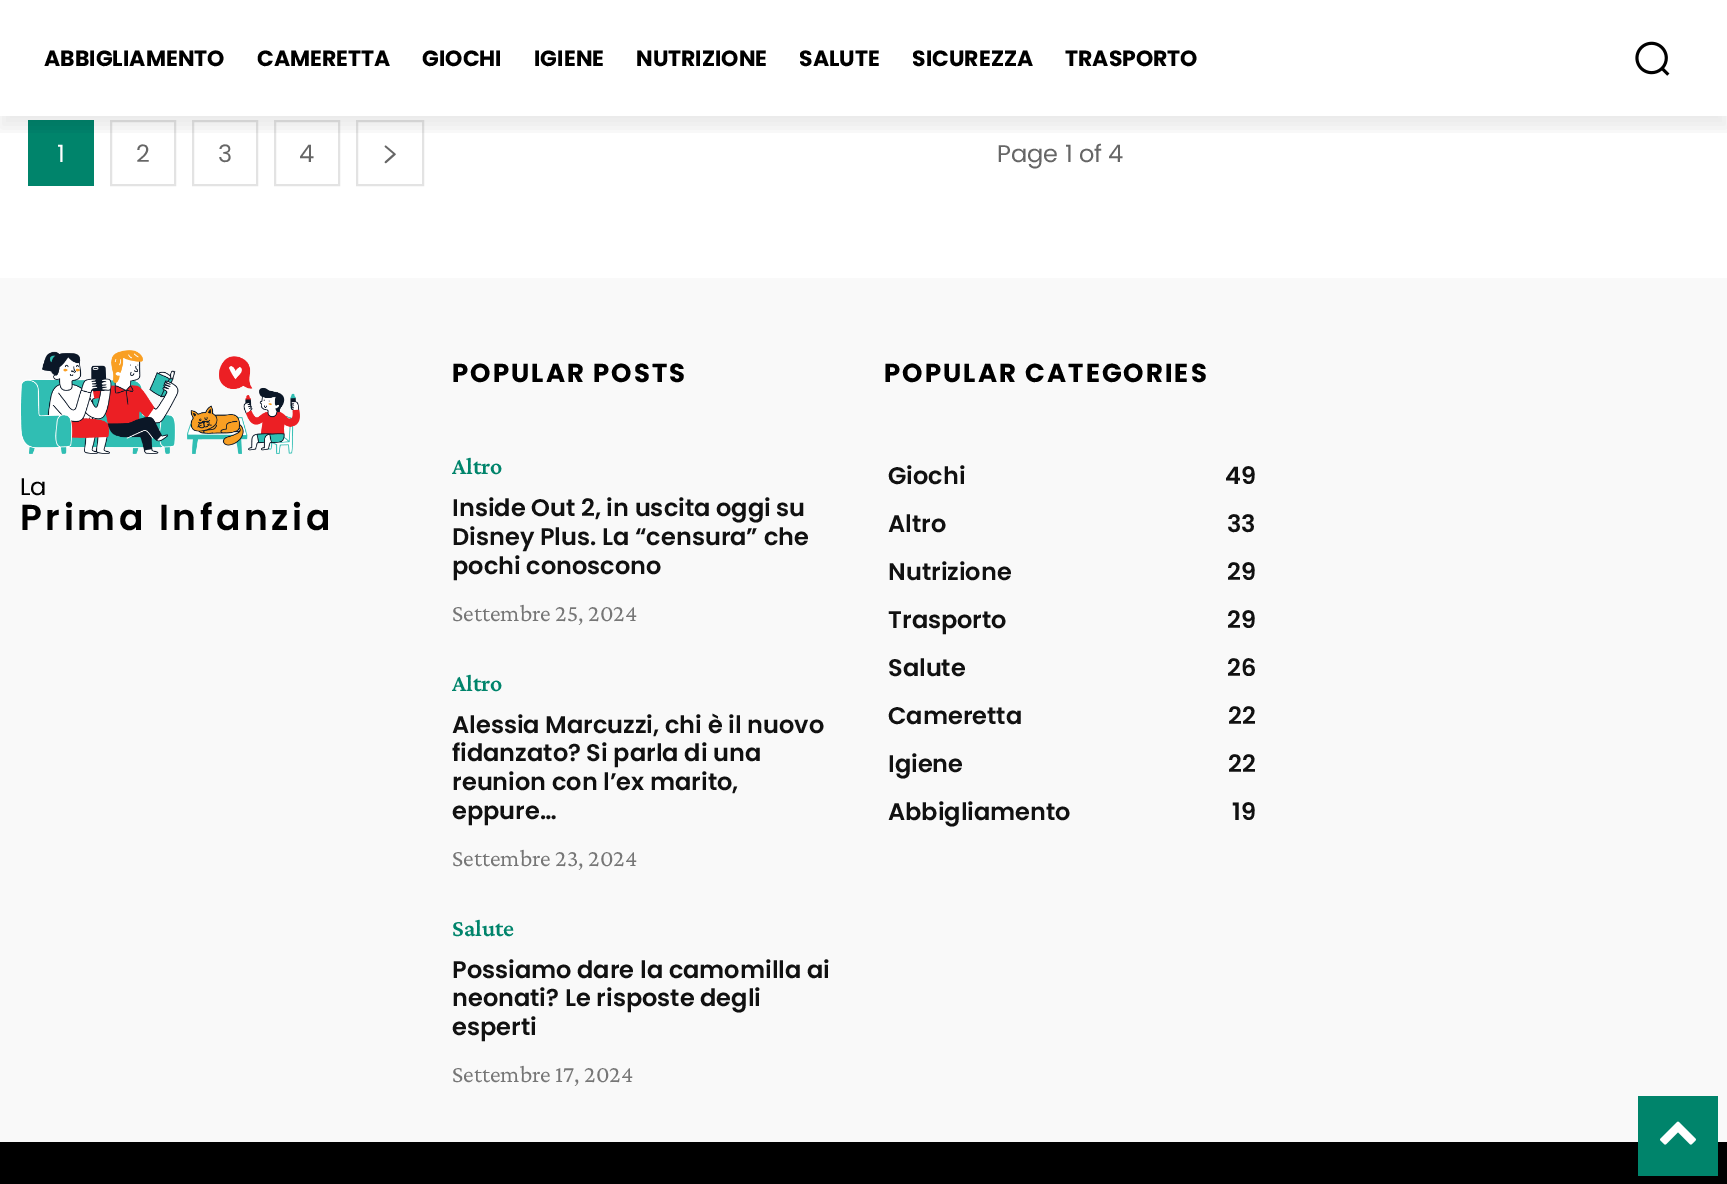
%!PS
<< /PageSize [1727 1184] /PageUsesTransparency true >> setpagedevice
/alpha { dup .setfillconstantalpha .setstrokeconstantalpha } def
/roundrect { 5 dict begin { /r /h /w /y /x } { exch def } forall
  x r add y moveto x w add y 2 copy h add r arct x w add y h add x 1 index r arct
  x y h add x y r arct x y 2 copy exch w add exch r arct closepath end } def
/shadow { 12 dict begin { /a /b /q /h /w /y /x } { exch def } forall gsave /was 0 def
  9 -2 -9 { dup b mul 4 div /e exch def 1 sub .425 mul 2.718 exch exp 1 add a .99 .min exch div /now exch def
    1 1 now sub 1 was sub div sub alpha /was now def
    w h .min e 2 mul add 0 gt { x e sub y e sub w e 2 mul add h e 2 mul add
      q e add b .6 mul add w h .min 2 div e add .min 0 .max roundrect fill } if } for grestore end } def
/picture { 5 dict begin { /h /w /y /x /name } { exch def } forall
  gsave x y translate w h scale
  w h 8 [w 0 0 h 0 0] name (r) file false 3 colorimage grestore end } def
0 .pushpdf14devicefilter
0 1184 translate 1 -1 scale
4 setmiterlimit
1 setgray
0 0 1727 1184 rectfill
0 0.518 0.42 setrgbcolor
28 120 66 66 rectfill
0.89 setgray
2 setlinewidth
111 121 64 64 rectstroke
193 121 64 64 rectstroke
275 121 64 64 rectstroke
357 121 66 64 rectstroke
(img2.rgb) 384 145 12 19 picture
gsave
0 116 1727 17 rectclip
0 setgray
0 12 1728 116 0 8 0.08 shadow
grestore
/Poppins-Bold [22 0 0 -22 0 0] selectfont
0 setgray
44 66 moveto (ABBIGLIAMENTO) show
257 66 moveto (CAMERETTA) show
422 66 moveto (GIOCHI) show
534 66 moveto (IGIENE) show
636 66 moveto (NUTRIZIONE) show
799 66 moveto (SALUTE) show
912 66 moveto (SICUREZZA) show
1065 66 moveto (TRASPORTO) show
(img1.rgb) 1635 41 35 35 picture
/Poppins-Regular [24 0 0 -24 0 0] selectfont
1 setgray
57 162 moveto (1) show
0.4 setgray
136 162 moveto (2) show
218 162 moveto (3) show
299 162 moveto (4) show
997 162 moveto (Page 1 of 4) show
0.976 setgray
0 278 1727 864 rectfill
(img3.rgb) 20 350 280 104 picture
0 setgray
20 495 moveto (La) show
/Poppins-SemiBold [36 0 0 -36 0 0] selectfont
20 530 moveto 3.6 0 (Prima Infanzia) ashow
/Poppins-Bold [26 0 0 -26 0 0] selectfont
452 382 moveto 2 0 (POPULAR POSTS) ashow
/CrimsonPro-SemiBold [24 0 0 -24 0 0] selectfont
0 0.518 0.42 setrgbcolor
452 474 moveto (Altro) show
/Poppins-SemiBold [24 0 0 -24 0 0] selectfont
0.067 setgray
452 516 moveto (Inside Out 2, in uscita oggi su) show
452 545 moveto (Disney Plus. La “censura” che) show
452 574 moveto (pochi conoscono) show
/CrimsonPro-Regular [24 0 0 -24 0 0] selectfont
0.463 setgray
452 621 moveto (Settembre 25, 2024) show
/CrimsonPro-SemiBold [24 0 0 -24 0 0] selectfont
0 0.518 0.42 setrgbcolor
452 691 moveto (Altro) show
/Poppins-SemiBold [24 0 0 -24 0 0] selectfont
0.067 setgray
452 733 moveto (Alessia Marcuzzi, chi è il nuovo) show
452 761 moveto (fidanzato? Si parla di una) show
452 790 moveto (reunion con l’ex marito,) show
452 819 moveto (eppure…) show
/CrimsonPro-Regular [24 0 0 -24 0 0] selectfont
0.463 setgray
452 866 moveto (Settembre 23, 2024) show
/CrimsonPro-SemiBold [24 0 0 -24 0 0] selectfont
0 0.518 0.42 setrgbcolor
452 936 moveto (Salute) show
/Poppins-SemiBold [24 0 0 -24 0 0] selectfont
0.067 setgray
452 978 moveto (Possiamo dare la camomilla ai) show
452 1006 moveto (neonati? Le risposte degli) show
452 1035 moveto (esperti) show
/CrimsonPro-Regular [24 0 0 -24 0 0] selectfont
0.463 setgray
452 1082 moveto (Settembre 17, 2024) show
/Poppins-Bold [26 0 0 -26 0 0] selectfont
0 setgray
884 382 moveto 2 0 (POPULAR CATEGORIES) ashow
/Poppins-SemiBold [24 0 0 -24 0 0] selectfont
0.067 setgray
888 484 moveto (Giochi) show
1225 484 moveto (49) show
888 532 moveto (Altro) show
1227 532 moveto (33) show
888 580 moveto (Nutrizione) show
1227 580 moveto (29) show
888 628 moveto (Trasporto) show
1227 628 moveto (29) show
888 676 moveto (Salute) show
1227 676 moveto (26) show
888 724 moveto (Cameretta) show
1228 724 moveto (22) show
888 772 moveto (Igiene) show
1228 772 moveto (22) show
888 820 moveto (Abbigliamento) show
1232 820 moveto (19) show
0 setgray
0 1142 1727 42 rectfill
0 0.518 0.42 setrgbcolor
1638 1096 80 80 rectfill
(img4.rgb) 1660 1121 36 24 picture
.poppdf14devicefilter showpage
